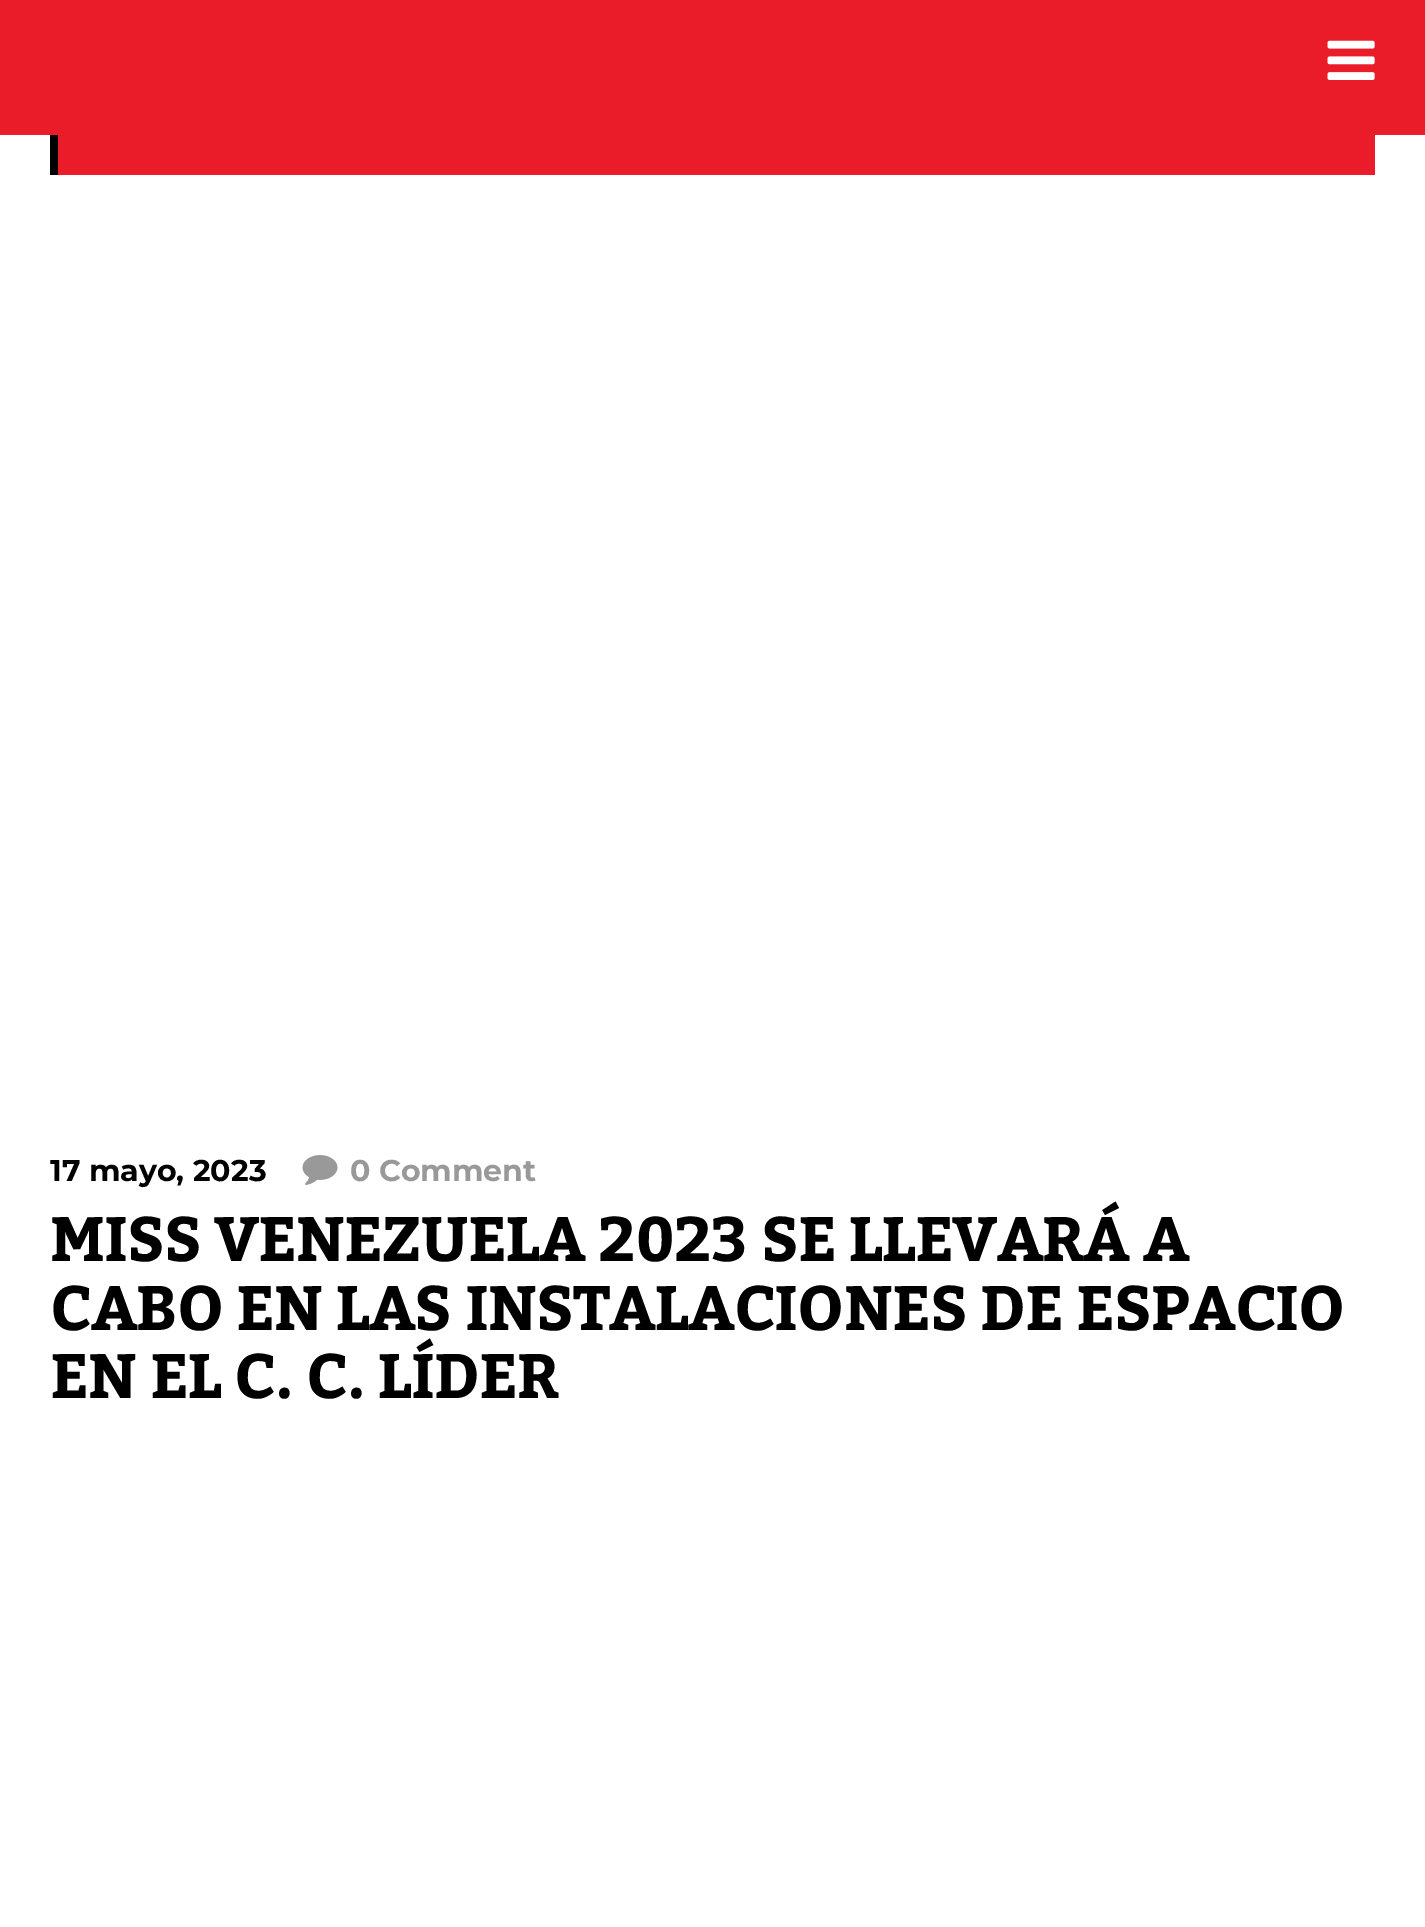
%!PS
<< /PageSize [1425 1927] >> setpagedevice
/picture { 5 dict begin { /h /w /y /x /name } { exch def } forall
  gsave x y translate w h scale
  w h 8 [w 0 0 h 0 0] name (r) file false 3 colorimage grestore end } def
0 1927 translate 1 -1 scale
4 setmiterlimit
1 setgray
0 0 1425 1927 rectfill
0.918 0.11 0.161 setrgbcolor
0 0 1425 135 rectfill
(img1.rgb) 1327 40 48 40 picture
58 135 1317 40 rectfill
0 setgray
50 135 8 40 rectfill
/Montserrat-Bold [30 0 0 -30 0 0] selectfont
50 1181 moveto (17 mayo, 2023) show
(img2.rgb) 302 1155 36 30 picture
0.6 setgray
350 1181 moveto (0 Comment) show
/Kadwa-Bold [62.5 0 0 -62.5 0 0] selectfont
0 setgray
50 1261 moveto -1 0 (MISS VENEZUELA 2023 SE LLEVARÁ A) ashow
50 1330 moveto -1 0 (CABO EN LAS INSTALACIONES DE ESPACIO) ashow
50 1398 moveto -1 0 (EN EL C. C. LÍDER) ashow
showpage
